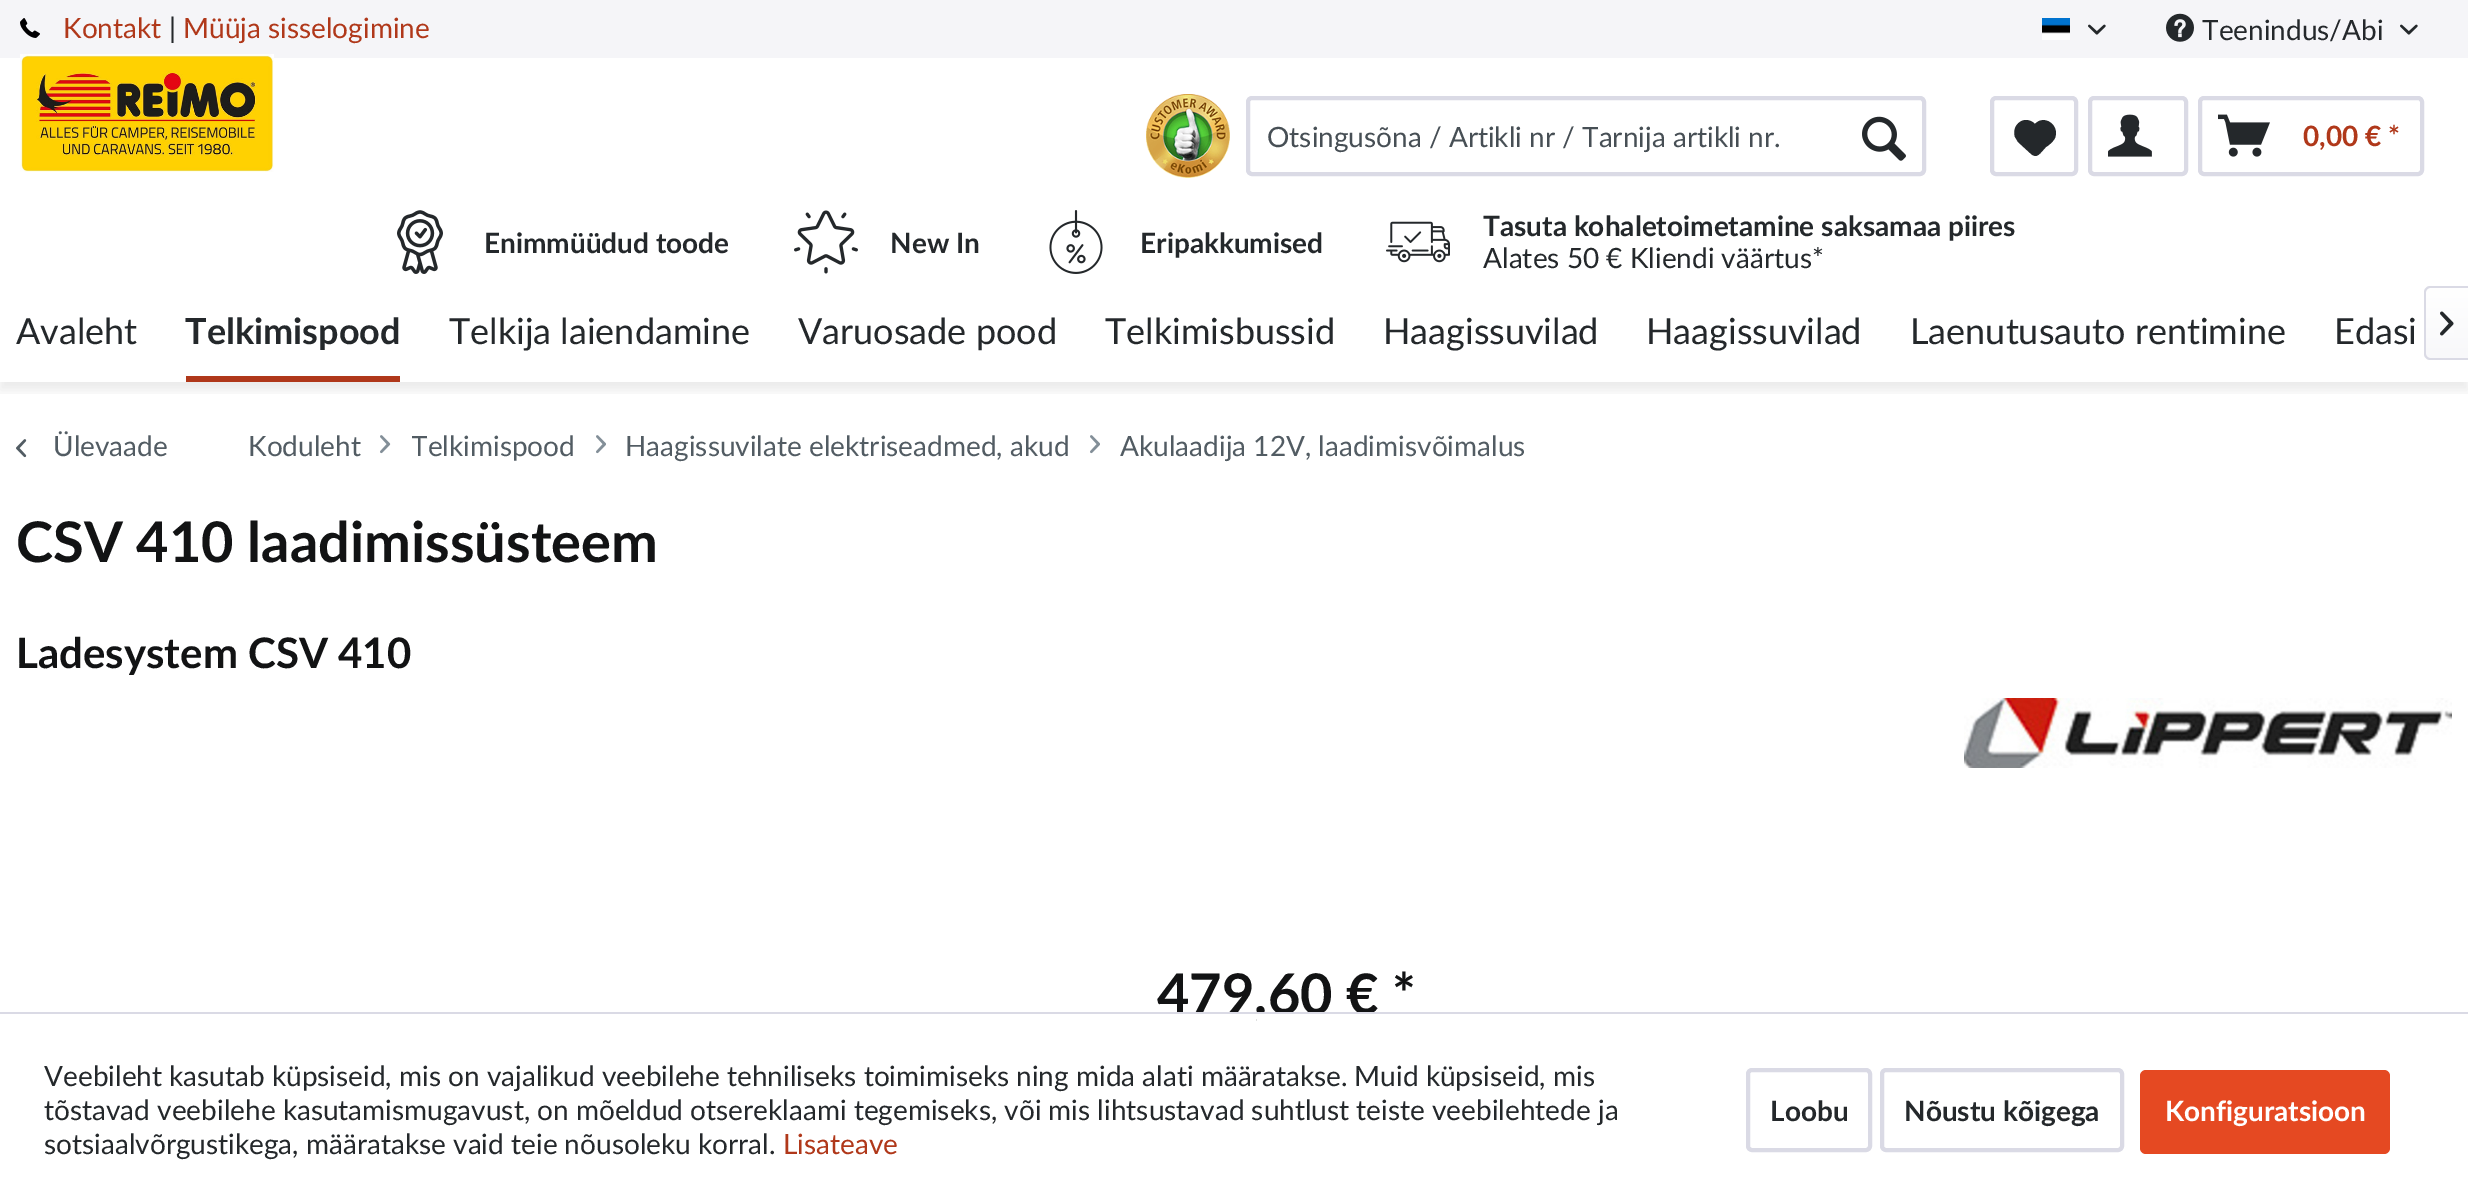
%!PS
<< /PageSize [2468 1204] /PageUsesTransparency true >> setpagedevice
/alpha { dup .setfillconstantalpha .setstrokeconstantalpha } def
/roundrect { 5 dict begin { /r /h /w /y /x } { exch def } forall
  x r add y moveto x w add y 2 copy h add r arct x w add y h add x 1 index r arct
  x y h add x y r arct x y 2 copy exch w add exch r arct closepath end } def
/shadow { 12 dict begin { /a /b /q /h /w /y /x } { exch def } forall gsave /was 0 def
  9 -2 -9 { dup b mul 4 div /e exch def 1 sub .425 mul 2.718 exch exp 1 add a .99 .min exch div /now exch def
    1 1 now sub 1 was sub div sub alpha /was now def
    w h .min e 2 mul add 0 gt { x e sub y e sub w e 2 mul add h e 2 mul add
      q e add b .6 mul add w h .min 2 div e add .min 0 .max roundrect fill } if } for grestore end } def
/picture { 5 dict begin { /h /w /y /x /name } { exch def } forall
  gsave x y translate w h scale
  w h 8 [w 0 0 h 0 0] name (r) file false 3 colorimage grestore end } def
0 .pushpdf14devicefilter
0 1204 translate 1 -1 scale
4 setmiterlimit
1 setgray
0 0 2468 1204 rectfill
0.961 0.961 0.973 setrgbcolor
0 0 2468 58 rectfill
(img1.rgb) 20 18 20 20 picture
/Lato-Regular [28 0 0 -28 0 0] selectfont
0.69 0.22 0.102 setrgbcolor
63 38 moveto (Kontakt) show
0.141 0.157 0.169 setrgbcolor
169 38 moveto (|) show
0.69 0.22 0.102 setrgbcolor
183 38 moveto (Müüja sisselogimine) show
(img2.rgb) 2042 18 28 22 picture
(img3.rgb) 2088 24 18 11 picture
(img4.rgb) 2166 13 28 29 picture
0.141 0.157 0.169 setrgbcolor
2202 40 moveto (Teenindus/Abi) show
(img3.rgb) 2400 24 18 11 picture
(img5.rgb) 20 54 254 118 picture
(img6.rgb) 1146 94 84 84 picture
0.855 0.855 0.898 setrgbcolor
4 setlinewidth
1248 98 676 76 4 roundrect stroke
0.278 0.31 0.333 setrgbcolor
1267 147 moveto (Otsingusõna / Artikli nr / Tarnija artikli nr.) show
(img7.rgb) 1862 116 44 45 picture
0.855 0.855 0.898 setrgbcolor
1992 98 84 76 4 roundrect stroke
0.141 0.157 0.169 setrgbcolor
newpath 2026 120 moveto 2018 120 2012 129 2015 137 curveto 2018 142 lineto 2030 153 lineto 2037 160 2040 153 2046 147 curveto 2049 145 2053 142 2055 138 curveto 2060 125 2044 114 2035 124 curveto 2033 122 2030 120 2026 120 curveto closepath fill
0.855 0.855 0.898 setrgbcolor
2090 98 96 76 4 roundrect stroke
(img8.rgb) 2108 114 44 43 picture
2200 98 222 76 4 roundrect stroke
(img9.rgb) 2218 114 52 43 picture
/Lato-Bold [28 0 0 -28 0 0] selectfont
0.69 0.22 0.102 setrgbcolor
2303 146 moveto (0,00 € *) show
(img10.rgb) 397 210 46 64 picture
0.141 0.157 0.169 setrgbcolor
484 253 moveto (Enimmüüdud toode) show
(img11.rgb) 794 210 64 64 picture
890 253 moveto (New In) show
(img12.rgb) 1049 210 54 64 picture
1140 253 moveto (Eripakkumised) show
(img13.rgb) 1386 221 64 42 picture
1483 236 moveto (Tasuta kohaletoimetamine saksamaa piires) show
/Lato-Regular [28 0 0 -28 0 0] selectfont
1483 268 moveto (Alates 50 € Kliendi väärtus*) show
gsave
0 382 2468 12 rectclip
0 setgray
0 292 2468 98 0 6 0.08 shadow
grestore
/Lato-Regular [36 0 0 -36 0 0] selectfont
16 344 moveto (Avaleht) show
0.69 0.22 0.102 setrgbcolor
186 376 214 6 rectfill
/Lato-Bold [36 0 0 -36 0 0] selectfont
0.141 0.157 0.169 setrgbcolor
185 344 moveto (Telkimispood) show
/Lato-Regular [36 0 0 -36 0 0] selectfont
449 344 moveto (Telkija laiendamine) show
798 344 moveto (Varuosade pood) show
1105 344 moveto (Telkimisbussid) show
1383 344 moveto (Haagissuvilad) show
1646 344 moveto (Haagissuvilad) show
1910 344 moveto (Laenutusauto rentimine) show
2334 344 moveto (Edasi) show
gsave newpath 2430 288 moveto 2468 288 lineto 2468 358 lineto 2430 358 lineto 2428 358 2426 356 2426 354 curveto 2426 292 lineto 2426 290 2428 288 2430 288 curveto closepath clip newpath
<< /ShadingType 2 /ColorSpace /DeviceRGB /Coords [2447 288 2447 358] /Extend [true true] /Function << /FunctionType 2 /Domain [0 1] /C0 [1 1 1] /C1 [0.973 0.973 0.98] /N 1 >> >> shfill grestore
0.855 0.855 0.898 setrgbcolor
newpath 2430 286 moveto 2468 286 lineto 2468 360 lineto 2430 360 lineto 2427 360 2424 357 2424 354 curveto 2424 292 lineto 2424 289 2427 286 2430 286 curveto closepath 2430 288 moveto 2468 288 lineto 2468 358 lineto 2430 358 lineto 2428 358 2426 356 2426 354 curveto 2426 292 lineto 2426 290 2428 288 2430 288 curveto closepath eofill
(img14.rgb) 2440 311 14 25 picture
(img15.rgb) 16 439 11 19 picture
/Lato-Regular [28 0 0 -28 0 0] selectfont
0.322 0.361 0.388 setrgbcolor
53 456 moveto (Ülevaade) show
248 456 moveto (Koduleht) show
(img16.rgb) 380 435 11 19 picture
gsave
412 402 184 88 rectclip
411 456 moveto (Telkimispood) show
grestore
(img17.rgb) 596 435 10 19 picture
625 456 moveto (Haagissuvilate elektriseadmed, akud) show
(img17.rgb) 1090 435 10 19 picture
1120 456 moveto (Akulaadija 12V, laadimisvõimalus) show
/Lato-Bold [56 0 0 -56 0 0] selectfont
0.071 0.075 0.078 setrgbcolor
16 562 moveto (CSV 410 laadimissüsteem) show
/Lato-Bold [42 0 0 -42 0 0] selectfont
16 668 moveto (Ladesystem CSV 410) show
(img18.rgb) 1964 698 488 70 picture
/Lato-Bold [56 0 0 -56 0 0] selectfont
1157 1014 moveto (479,60 € *) show
1 setgray
1257 1014 112 8 rectfill
0.855 0.855 0.898 setrgbcolor
0 1012 2468 2 rectfill
/Lato-Regular [28 0 0 -28 0 0] selectfont
0.141 0.157 0.169 setrgbcolor
44 1086 moveto (Veebileht kasutab küpsiseid, mis on vajalikud veebilehe tehniliseks toimimiseks ning mida alati määratakse. Muid küpsiseid, mis) show
44 1120 moveto (tõstavad veebilehe kasutamismugavust, on mõeldud otsereklaami tegemiseks, või mis lihtsustavad suhtlust teiste veebilehtede ja) show
44 1154 moveto (sotsiaalvõrgustikega, määratakse vaid teie nõusoleku korral.) show
0.69 0.22 0.102 setrgbcolor
783 1154 moveto (Lisateave) show
0.855 0.855 0.898 setrgbcolor
1748 1070 122 80 4 roundrect stroke
/Lato-Bold [28 0 0 -28 0 0] selectfont
0.141 0.157 0.169 setrgbcolor
1770 1121 moveto (Loobu) show
0.855 0.855 0.898 setrgbcolor
1882 1070 240 80 4 roundrect stroke
0.141 0.157 0.169 setrgbcolor
1904 1121 moveto (Nõustu kõigega) show
0.898 0.286 0.133 setrgbcolor
2140 1070 250 84 6 roundrect fill
1 setgray
2165 1121 moveto (Konfiguratsioon) show
.poppdf14devicefilter showpage
